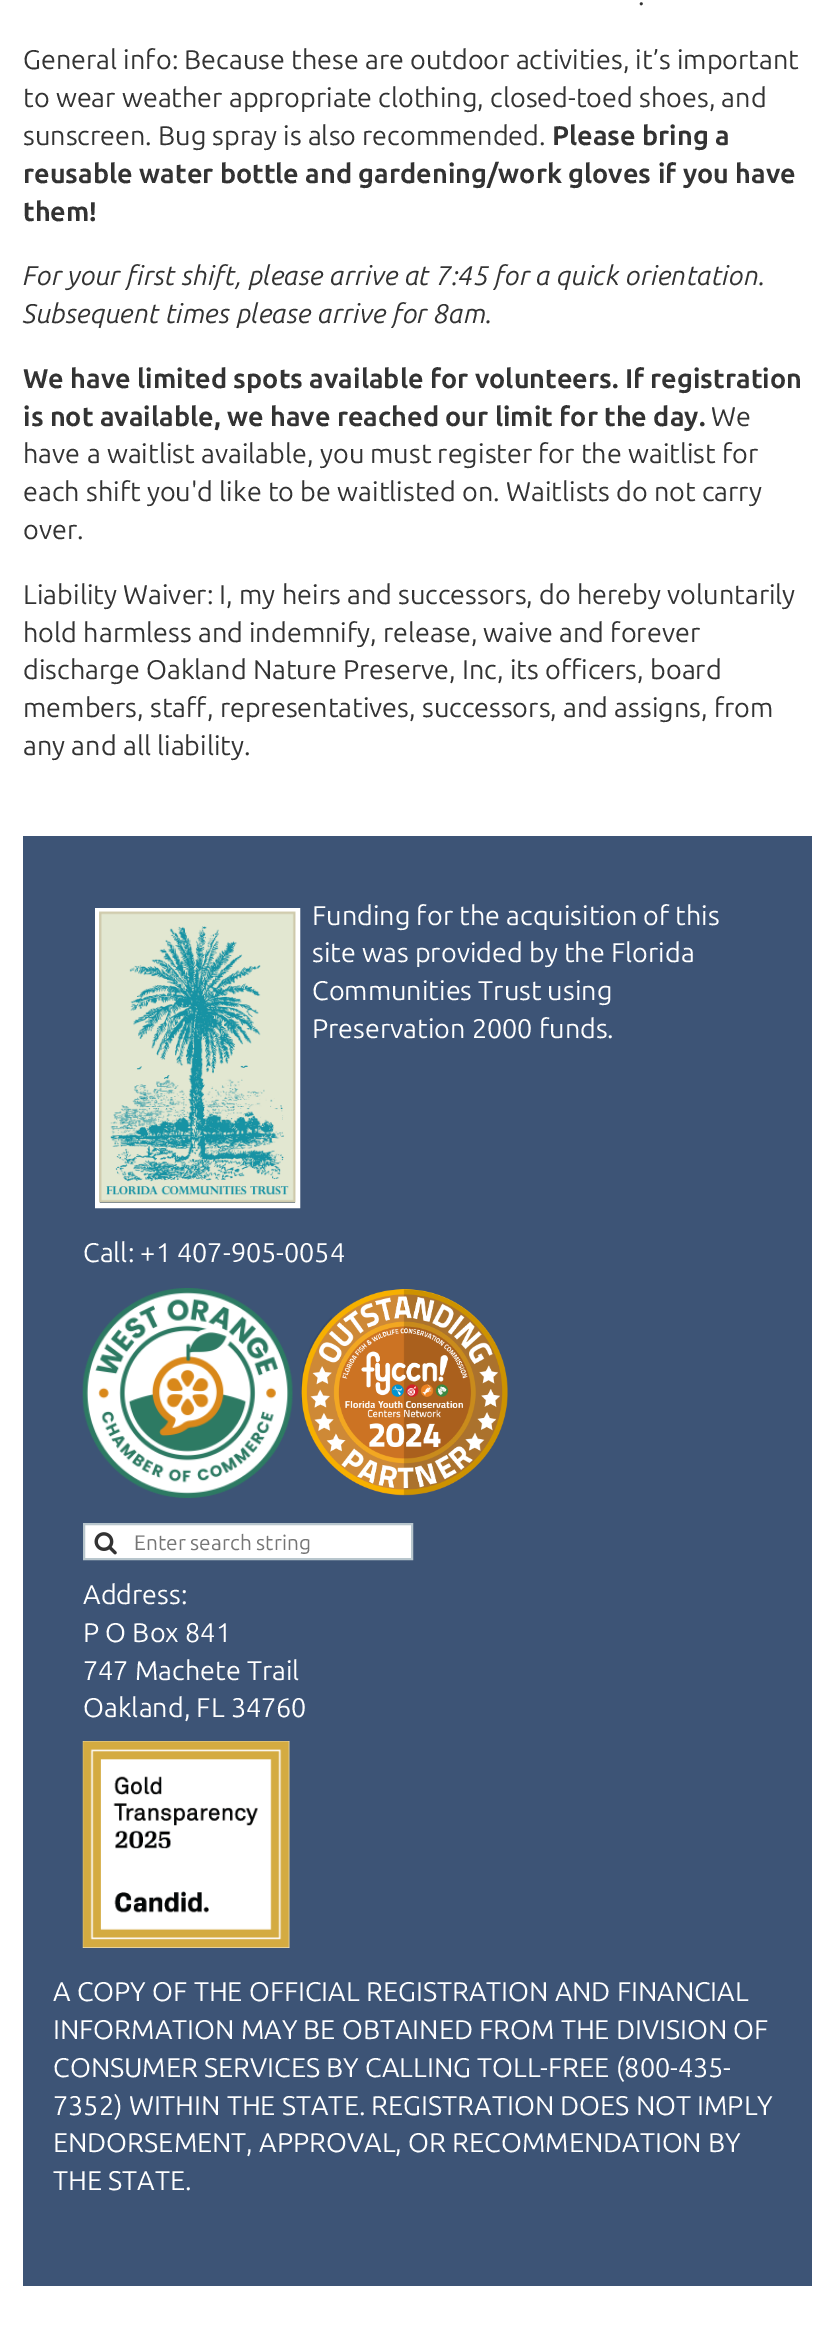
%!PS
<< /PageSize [834 2338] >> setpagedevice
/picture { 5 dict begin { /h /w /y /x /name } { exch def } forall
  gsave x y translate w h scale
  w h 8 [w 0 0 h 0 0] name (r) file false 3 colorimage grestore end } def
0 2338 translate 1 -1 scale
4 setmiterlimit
1 setgray
0 0 834 2338 rectfill
/Ubuntu-Regular [27 0 0 -27 0 0] selectfont
0.2 setgray
638 5 moveto (.) show
23 69 moveto (General info: Because these are outdoor activities, it’s important) show
23 107 moveto (to wear weather appropriate clothing, closed-toed shoes, and) show
23 145 moveto (sunscreen. Bug spray is also recommended.) show
/Ubuntu-Bold [27 0 0 -27 0 0] selectfont
552 145 moveto (Please bring a) show
23 183 moveto (reusable water bottle and gardening/work gloves if you have) show
23 221 moveto (them!) show
/Ubuntu-Italic [27 0 0 -27 0 0] selectfont
23 285 moveto (For your first shift, please arrive at 7:45 for a quick orientation.) show
23 323 moveto (Subsequent times please arrive for 8am.) show
/Ubuntu-Bold [27 0 0 -27 0 0] selectfont
23 388 moveto (We have limited spots available for volunteers. If registration) show
23 426 moveto (is not available, we have reached our limit for the day.) show
/Ubuntu-Regular [27 0 0 -27 0 0] selectfont
711 426 moveto (We) show
23 463 moveto (have a waitlist available, you must register for the waitlist for) show
23 501 moveto (each shift you'd like to be waitlisted on. Waitlists do not carry) show
23 539 moveto (over.) show
23 604 moveto (Liability Waiver: I, my heirs and successors, do hereby voluntarily) show
23 642 moveto (hold harmless and indemnify, release, waive and forever) show
23 679 moveto (discharge Oakland Nature Preserve, Inc, its officers, board) show
23 717 moveto (members, staff, representatives, successors, and assigns, from) show
23 755 moveto (any and all liability.) show
0.239 0.329 0.463 setrgbcolor
23 836 789 1450 rectfill
1 setgray
5 setlinewidth
97.5 910.5 200 295 rectstroke
(img1.rgb) 99 911 197 292 picture
312 925 moveto (Funding for the acquisition of this) show
312 962 moveto (site was provided by the Florida) show
312 1000 moveto (Communities Trust using) show
312 1038 moveto (Preservation 2000 funds.) show
83 1262 moveto (Call: +1 407-905-0054) show
(img2.rgb) 82 1288 211 210 picture
(img3.rgb) 301 1289 207 207 picture
newpath 84 1524 moveto 412 1524 lineto 412 1559 lineto 84 1559 lineto closepath gsave fill grestore
0.722 0.776 0.804 setrgbcolor
2 setlinewidth
stroke
(img4.rgb) 94 1532 23 23 picture
/Ubuntu-Regular [21 0 0 -21 0 0] selectfont
0.459 setgray
134 1550 moveto (Enter search string) show
/Ubuntu-Regular [27 0 0 -27 0 0] selectfont
1 setgray
83 1604 moveto (Address:) show
83 1642 moveto (P O Box 841) show
83 1680 moveto (747 Machete Trail) show
83 1717 moveto (Oakland, FL 34760) show
(img5.rgb) 82 1741 208 207 picture
53 2001 moveto (A COPY OF THE OFFICIAL REGISTRATION AND FINANCIAL) show
53 2039 moveto (INFORMATION MAY BE OBTAINED FROM THE DIVISION OF) show
53 2077 moveto (CONSUMER SERVICES BY CALLING TOLL-FREE \(800-435-) show
53 2115 moveto (7352\) WITHIN THE STATE. REGISTRATION DOES NOT IMPLY) show
53 2152 moveto (ENDORSEMENT, APPROVAL, OR RECOMMENDATION BY) show
53 2190 moveto (THE STATE.) show
showpage
